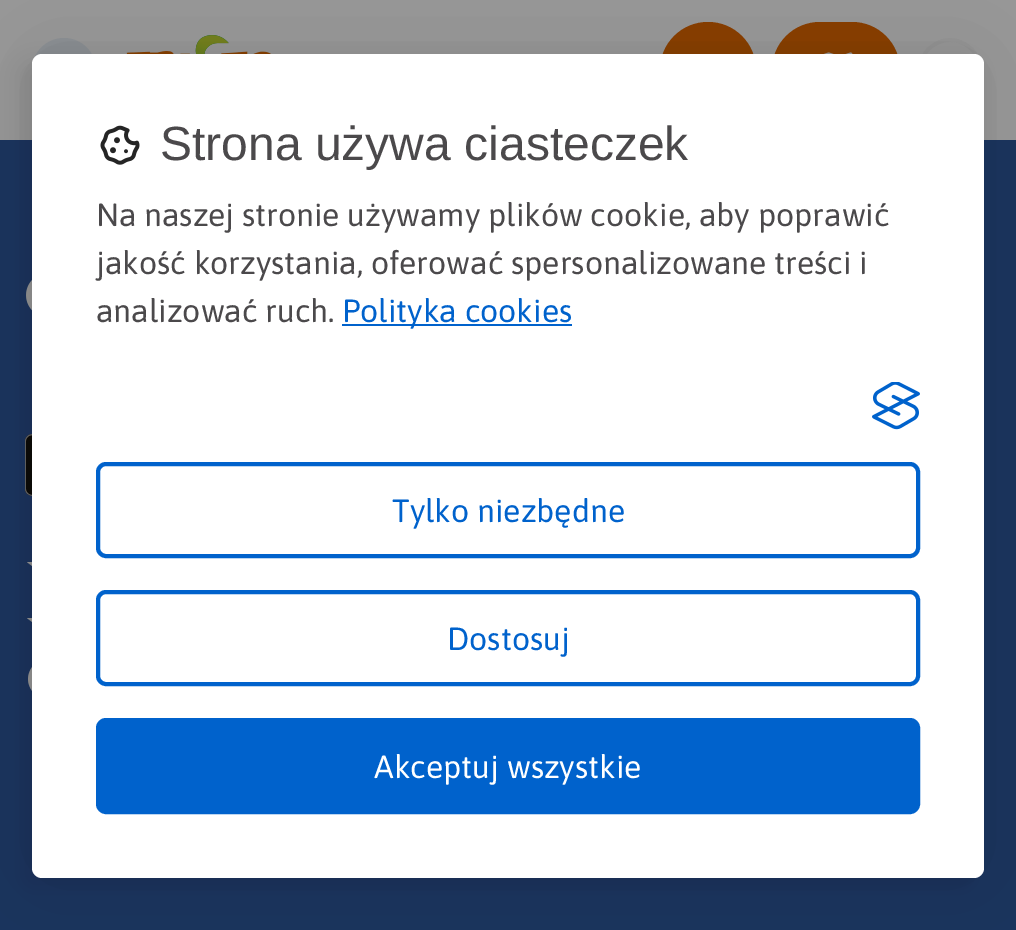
%!PS
<< /PageSize [1016 930] /PageUsesTransparency true >> setpagedevice
/alpha { dup .setfillconstantalpha .setstrokeconstantalpha } def
/roundrect { 5 dict begin { /r /h /w /y /x } { exch def } forall
  x r add y moveto x w add y 2 copy h add r arct x w add y h add x 1 index r arct
  x y h add x y r arct x y 2 copy exch w add exch r arct closepath end } def
/shadow { 12 dict begin { /a /b /q /h /w /y /x } { exch def } forall gsave /was 0 def
  9 -2 -9 { dup b mul 4 div /e exch def 1 sub .425 mul 2.718 exch exp 1 add a .99 .min exch div /now exch def
    1 1 now sub 1 was sub div sub alpha /was now def
    w h .min e 2 mul add 0 gt { x e sub y e sub w e 2 mul add h e 2 mul add
      q e add b .6 mul add w h .min 2 div e add .min 0 .max roundrect fill } if } for grestore end } def
/picture { 5 dict begin { /h /w /y /x /name } { exch def } forall
  gsave x y translate w h scale
  w h 8 [w 0 0 h 0 0] name (r) file false 3 colorimage grestore end } def
0 .pushpdf14devicefilter
0 930 translate 1 -1 scale
4 setmiterlimit
0.102 0.204 0.365 setrgbcolor
0 0 1016 930 rectfill
0.6 setgray
0 0 1016 140 rectfill
0.553 0.569 0.584 setrgbcolor
newpath 64 70 32 0 360 arc closepath fill
(img1.rgb) 126 35 145 19 picture
0.541 0.243 0 setrgbcolor
newpath 708 70 48 0 360 arc closepath fill
772 22 128 96 48 roundrect fill
(img2.rgb) 823 52 30 2 picture
(img3.rgb) 922 38 57 18 picture
(img4.rgb) 26 280 6 31 picture
(img5.rgb) 25 434 7 62 picture
0.6 setgray
newpath 53 562 moveto 48 547 lineto 43 562 lineto 27 562 lineto 40 572 lineto 35 587 lineto 48 577 lineto 61 587 lineto 56 572 lineto 69 562 lineto closepath fill
newpath 53 618 moveto 48 603 lineto 43 618 lineto 27 618 lineto 40 628 lineto 35 643 lineto 48 633 lineto 61 643 lineto 56 628 lineto 69 618 lineto closepath fill
(img6.rgb) 28 667 4 24 picture
0 setgray
32 54 952 824 10 50 0.1 shadow
22 64 952 824 10 10 0.07 shadow
1 setgray
32 54 952 824 10 roundrect fill
(img7.rgb) 100 125 40 40 picture
/LiberationSans-Regular [48 0 0 -48 0 0] selectfont
0.294 0.286 0.294 setrgbcolor
160 160 moveto (Strona używa ciasteczek) show
/Asap-Regular [32 0 0 -32 0 0] selectfont
96 226 moveto (Na naszej stronie używamy plików cookie, aby poprawić) show
96 274 moveto (jakość korzystania, oferować spersonalizowane treści i) show
96 322 moveto (analizować ruch.) show
0 0.384 0.8 setrgbcolor
342 324 230 2 rectfill
342 322 moveto (Polityka cookies) show
(img8.rgb) 872 382 48 48 picture
4 setlinewidth
98 464 820 92 8 roundrect stroke
392 522 moveto (Tylko niezbędne) show
98 592 820 92 8 roundrect stroke
447 650 moveto (Dostosuj) show
98 720 820 92 8 roundrect gsave fill grestore
stroke
1 setgray
374 778 moveto (Akceptuj wszystkie) show
.poppdf14devicefilter showpage
